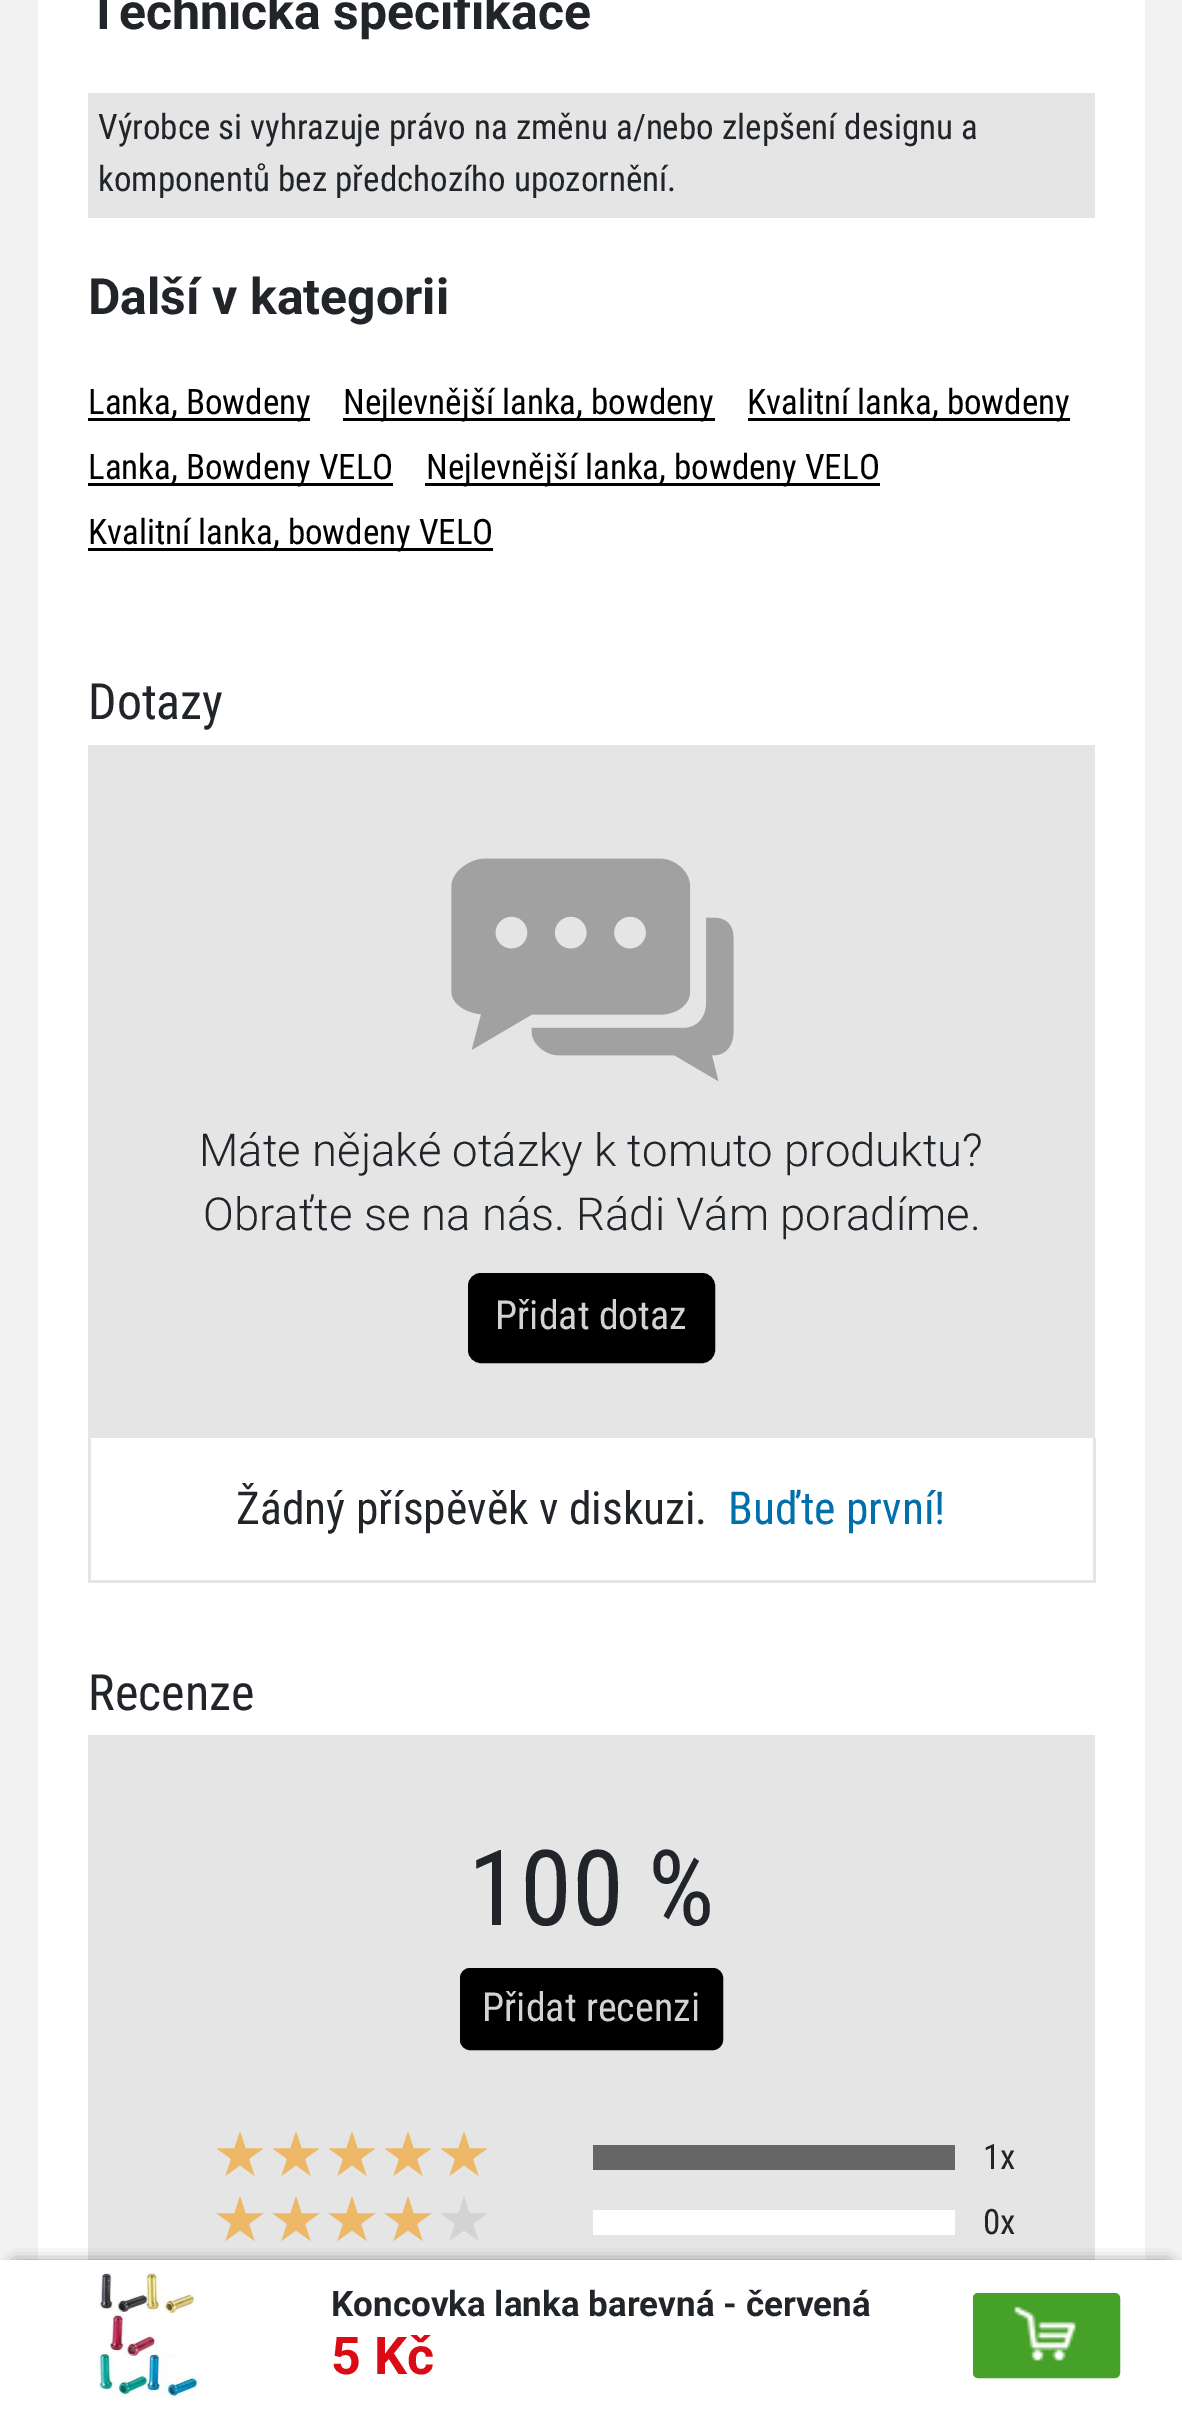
%!PS
<< /PageSize [1182 2409] /PageUsesTransparency true >> setpagedevice
/alpha { dup .setfillconstantalpha .setstrokeconstantalpha } def
/roundrect { 5 dict begin { /r /h /w /y /x } { exch def } forall
  x r add y moveto x w add y 2 copy h add r arct x w add y h add x 1 index r arct
  x y h add x y r arct x y 2 copy exch w add exch r arct closepath end } def
/shadow { 12 dict begin { /a /b /q /h /w /y /x } { exch def } forall gsave /was 0 def
  9 -2 -9 { dup b mul 4 div /e exch def 1 sub .425 mul 2.718 exch exp 1 add a .99 .min exch div /now exch def
    1 1 now sub 1 was sub div sub alpha /was now def
    w h .min e 2 mul add 0 gt { x e sub y e sub w e 2 mul add h e 2 mul add
      q e add b .6 mul add w h .min 2 div e add .min 0 .max roundrect fill } if } for grestore end } def
/picture { 5 dict begin { /h /w /y /x /name } { exch def } forall
  gsave x y translate w h scale
  w h 8 [w 0 0 h 0 0] name (r) file false 3 colorimage grestore end } def
0 .pushpdf14devicefilter
0 2409 translate 1 -1 scale
4 setmiterlimit
0.949 setgray
0 0 1182 2409 rectfill
1 setgray
38 0 1107 2260 rectfill
/Roboto-Bold [50 0 0 -50 0 0] selectfont
0.129 0.145 0.161 setrgbcolor
88 29 moveto (Technická specifikace) show
0.898 setgray
88 93 1007 125 rectfill
/RobotoCondensed-Regular [35 0 0 -35 0 0] selectfont
0.129 0.145 0.161 setrgbcolor
98 139 moveto (Výrobce si vyhrazuje právo na změnu a/nebo zlepšení designu a) show
98 191 moveto (komponentů bez předchozího upozornění.) show
/Roboto-Bold [50 0 0 -50 0 0] selectfont
88 314 moveto (Další v kategorii) show
0 setgray
88 418 222 3 rectfill
/RobotoCondensed-Regular [35 0 0 -35 0 0] selectfont
88 414 moveto (Lanka, Bowdeny) show
343 418 372 3 rectfill
343 414 moveto (Nejlevnější lanka, bowdeny) show
748 418 322 3 rectfill
747 414 moveto (Kvalitní lanka, bowdeny) show
88 483 305 3 rectfill
88 479 moveto (Lanka, Bowdeny VELO) show
425 483 455 3 rectfill
426 479 moveto (Nejlevnější lanka, bowdeny VELO) show
88 548 405 3 rectfill
88 544 moveto (Kvalitní lanka, bowdeny VELO) show
/RobotoCondensed-Regular [50 0 0 -50 0 0] selectfont
0.129 0.145 0.161 setrgbcolor
88 719 moveto (Dotazy) show
0.898 setgray
88 745 1007 693 rectfill
(img1.rgb) 451 858 283 224 picture
/Roboto-Light [45.5 0 0 -45.5 0 0] selectfont
0.129 0.145 0.161 setrgbcolor
199 1166 moveto (Máte nějaké otázky k tomuto produktu?) show
203 1230 moveto (Obraťte se na nás. Rádi Vám poradíme.) show
0 setgray
469.5 1274.5 244 87 11.5 roundrect gsave fill grestore
3 setlinewidth
stroke
/RobotoCondensed-Regular [40 0 0 -40 0 0] selectfont
0.827 setgray
495 1329 moveto (Přidat dotaz) show
0.898 setgray
1093 1438 3 145 rectfill
88 1580 1007 3 rectfill
88 1438 3 145 rectfill
/RobotoCondensed-Regular [45.5 0 0 -45.5 0 0] selectfont
0.129 0.145 0.161 setrgbcolor
236 1524 moveto (Žádný příspěvěk v diskuzi.) show
0 0.435 0.667 setrgbcolor
728 1524 moveto (Buďte první!) show
/RobotoCondensed-Regular [50 0 0 -50 0 0] selectfont
0.129 0.145 0.161 setrgbcolor
88 1710 moveto (Recenze) show
0.898 setgray
88 1735 1007 525 rectfill
/RobotoCondensed-Regular [105 0 0 -105 0 0] selectfont
0.129 0.145 0.161 setrgbcolor
468 1925 moveto (100 %) show
0 setgray
461.5 1969.5 260 79 8.5 roundrect gsave fill grestore
stroke
/RobotoCondensed-Regular [40 0 0 -40 0 0] selectfont
0.827 setgray
482 2021 moveto (Přidat recenzi) show
/DejaVuSans-Regular [62.5 0 0 -62.5 0 0] selectfont
0.929 0.722 0.404 setrgbcolor
212 2176 moveto (★★★★★) show
0.4 setgray
593 2145 362 25 rectfill
/RobotoCondensed-Regular [35 0 0 -35 0 0] selectfont
0.129 0.145 0.161 setrgbcolor
983 2169 moveto (1x) show
/DejaVuSans-Regular [62.5 0 0 -62.5 0 0] selectfont
0.929 0.722 0.404 setrgbcolor
212 2241 moveto (★★★★) show
0.827 setgray
436 2241 moveto (★) show
1 setgray
593 2210 362 25 rectfill
/RobotoCondensed-Regular [35 0 0 -35 0 0] selectfont
0.129 0.145 0.161 setrgbcolor
983 2234 moveto (0x) show
0.145 setgray
15 2265 1153 120 0 7.5 1 shadow
1 setgray
0 2260 1182 149 rectfill
(img2.rgb) 96 2272 105 126 picture
/Roboto-Bold [35 0 0 -35 0 0] selectfont
0.129 0.145 0.161 setrgbcolor
331 2316 moveto (Koncovka lanka barevná - červená) show
/Roboto-Bold [52 0 0 -52 0 0] selectfont
0.855 0.043 0.078 setrgbcolor
331 2374 moveto (5 Kč) show
0.275 0.631 0.157 setrgbcolor
974.5 2294.5 144 82 3.5 roundrect gsave fill grestore
stroke
(img3.rgb) 1014 2306 62 55 picture
.poppdf14devicefilter showpage
